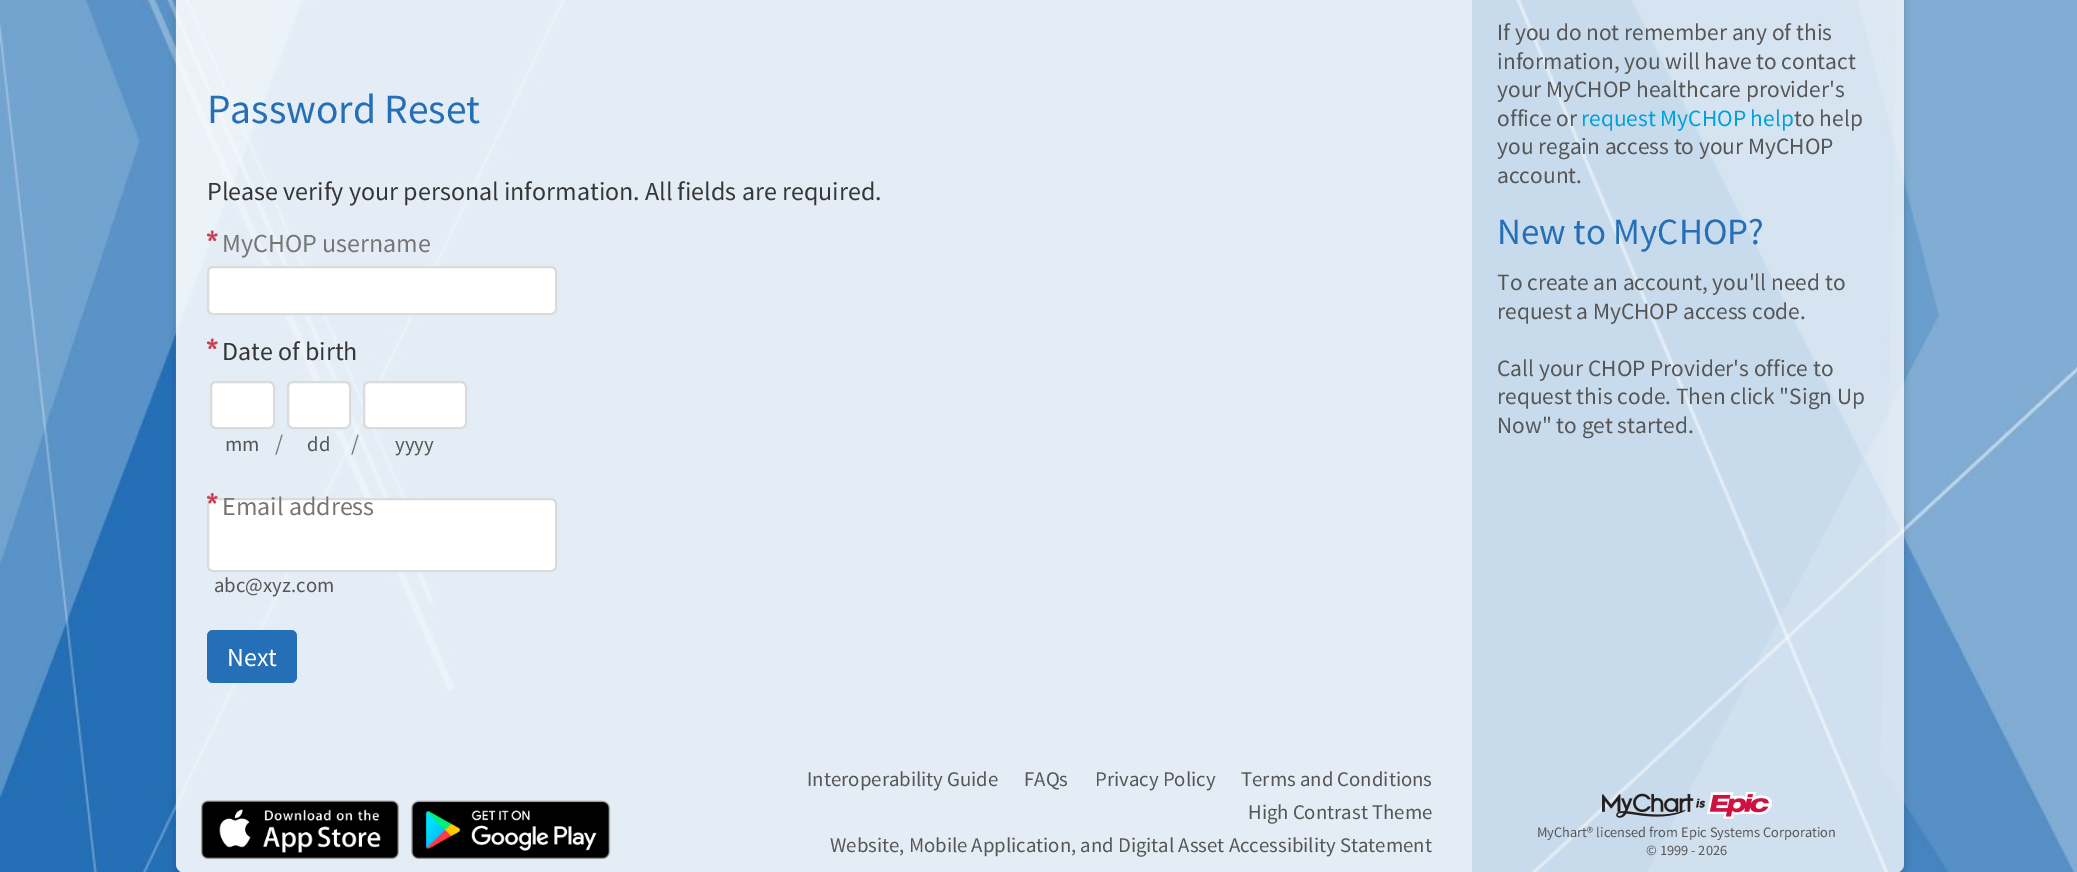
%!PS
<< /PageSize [2077 872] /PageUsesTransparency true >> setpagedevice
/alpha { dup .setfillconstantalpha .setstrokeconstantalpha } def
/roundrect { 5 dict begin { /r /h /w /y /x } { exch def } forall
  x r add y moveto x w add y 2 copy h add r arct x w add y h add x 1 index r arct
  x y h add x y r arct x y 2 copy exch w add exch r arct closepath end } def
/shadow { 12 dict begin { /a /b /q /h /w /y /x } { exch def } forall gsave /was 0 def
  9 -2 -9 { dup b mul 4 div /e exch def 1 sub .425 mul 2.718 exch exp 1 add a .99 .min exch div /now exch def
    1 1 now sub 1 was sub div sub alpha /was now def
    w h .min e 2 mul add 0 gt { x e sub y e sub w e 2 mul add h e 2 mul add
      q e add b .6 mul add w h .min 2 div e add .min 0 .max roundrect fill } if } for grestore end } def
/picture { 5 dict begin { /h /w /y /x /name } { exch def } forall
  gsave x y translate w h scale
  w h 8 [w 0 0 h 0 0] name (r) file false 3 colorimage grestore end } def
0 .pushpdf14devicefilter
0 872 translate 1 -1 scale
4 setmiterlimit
1 setgray
0 0 2077 872 rectfill
(img1.rgb) 0 0 2077 872 picture
gsave
newpath 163 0 moveto 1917 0 lineto 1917 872 lineto 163 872 lineto closepath 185 -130 moveto 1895 -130 lineto 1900 -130 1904 -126 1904 -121 curveto 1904 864 lineto 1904 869 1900 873 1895 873 curveto 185 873 lineto 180 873 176 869 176 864 curveto 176 -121 lineto 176 -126 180 -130 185 -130 curveto closepath eoclip newpath
0 setgray
176 -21 1728 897 9 4 0.2 shadow
grestore
(img2.rgb) 175 0 1729 864 picture
0.88 alpha
176 0 1296 749 rectfill
/SourceSansPro-Regular [41.5 0 0 -41.5 0 0] selectfont
1 alpha
0.141 0.435 0.71 setrgbcolor
207 123 moveto (Password Reset) show
/SourceSansPro-Regular [26 0 0 -26 0 0] selectfont
0.212 setgray
207 200 moveto (Please verify your personal information. All fields are required.) show
(img3.rgb) 207 230 11 11 picture
0.463 setgray
222 252 moveto (MyCHOP username) show
1 setgray
208 267 348 47 5 roundrect gsave fill grestore
0.859 setgray
2 setlinewidth
stroke
(img4.rgb) 207 338 11 11 picture
0.212 setgray
222 360 moveto (Date of birth) show
1 setgray
211 382 63 46 5 roundrect gsave fill grestore
0.859 setgray
stroke
/SourceSansPro-Regular [20.8 0 0 -20.8 0 0] selectfont
0.337 setgray
225 451 moveto (mm) show
/SourceSansPro-Regular [23 0 0 -23 0 0] selectfont
0.463 setgray
275 451 moveto (/) show
1 setgray
288 382 62 46 5 roundrect gsave fill grestore
0.859 setgray
stroke
/SourceSansPro-Regular [20.8 0 0 -20.8 0 0] selectfont
0.337 setgray
307 451 moveto (dd) show
/SourceSansPro-Regular [23 0 0 -23 0 0] selectfont
0.463 setgray
351 451 moveto (/) show
1 setgray
364 382 102 46 5 roundrect gsave fill grestore
0.859 setgray
stroke
/SourceSansPro-Regular [20.8 0 0 -20.8 0 0] selectfont
0.337 setgray
395 451 moveto (yyyy) show
1 setgray
208 499 348 72 5 roundrect gsave fill grestore
0.859 setgray
stroke
(img5.rgb) 207 493 11 11 picture
/SourceSansPro-Regular [26 0 0 -26 0 0] selectfont
0.463 setgray
222 515 moveto (Email address) show
/SourceSansPro-Regular [20.8 0 0 -20.8 0 0] selectfont
0.337 setgray
214 592 moveto (abc@xyz.com) show
0.141 0.435 0.71 setrgbcolor
207 630 90 53 6 roundrect fill
/SourceSansPro-Regular [26 0 0 -26 0 0] selectfont
1 setgray
227 666 moveto (Next) show
0.75 alpha
1472 0 432 749 rectfill
/SourceSansPro-Regular [23.4 0 0 -23.4 0 0] selectfont
1 alpha
0.337 setgray
1497 40 moveto (If you do not remember any of this) show
1497 69 moveto (information, you will have to contact) show
1497 97 moveto (your MyCHOP healthcare provider's) show
1497 126 moveto (office or) show
0 0.631 0.859 setrgbcolor
1581 126 moveto (request MyCHOP help) show
0.337 setgray
1794 126 moveto (to help) show
1497 154 moveto (you regain access to your MyCHOP) show
1497 183 moveto (account.) show
/SourceSansPro-Regular [37 0 0 -37 0 0] selectfont
0.141 0.435 0.71 setrgbcolor
1497 244 moveto (New to MyCHOP?) show
/SourceSansPro-Regular [23.4 0 0 -23.4 0 0] selectfont
0.337 setgray
1497 290 moveto (To create an account, you'll need to) show
1497 319 moveto (request a MyCHOP access code.) show
1497 376 moveto (Call your CHOP Provider's office to) show
1497 404 moveto (request this code. Then click "Sign Up) show
1497 433 moveto (Now" to get started.) show
0.88 alpha
1 setgray
newpath 176 749 moveto 1472 749 lineto 1472 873 lineto 185 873 lineto 180 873 176 869 176 864 curveto closepath fill
1 alpha
(img6.rgb) 201 800 198 59 picture
(img7.rgb) 411 800 200 59 picture
/SourceSansPro-Regular [20.8 0 0 -20.8 0 0] selectfont
0.337 setgray
807 786 moveto (Interoperability Guide) show
1024 786 moveto (FAQs) show
1095 786 moveto (Privacy Policy) show
1241 786 moveto (Terms and Conditions) show
1248 819 moveto (High Contrast Theme) show
830 852 moveto (Website, Mobile Application, and Digital Asset Accessibility Statement) show
0.75 alpha
1 setgray
newpath 1472 749 moveto 1904 749 lineto 1904 864 lineto 1904 869 1900 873 1895 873 curveto 1472 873 lineto closepath fill
1 alpha
(img8.rgb) 1602 792 169 27 picture
/SourceSansPro-Regular [14.4 0 0 -14.4 0 0] selectfont
0.337 setgray
1537 837 moveto (MyChart® licensed from Epic Systems Corporation) show
1646 855 moveto (© 1999 - 2026) show
.poppdf14devicefilter showpage
